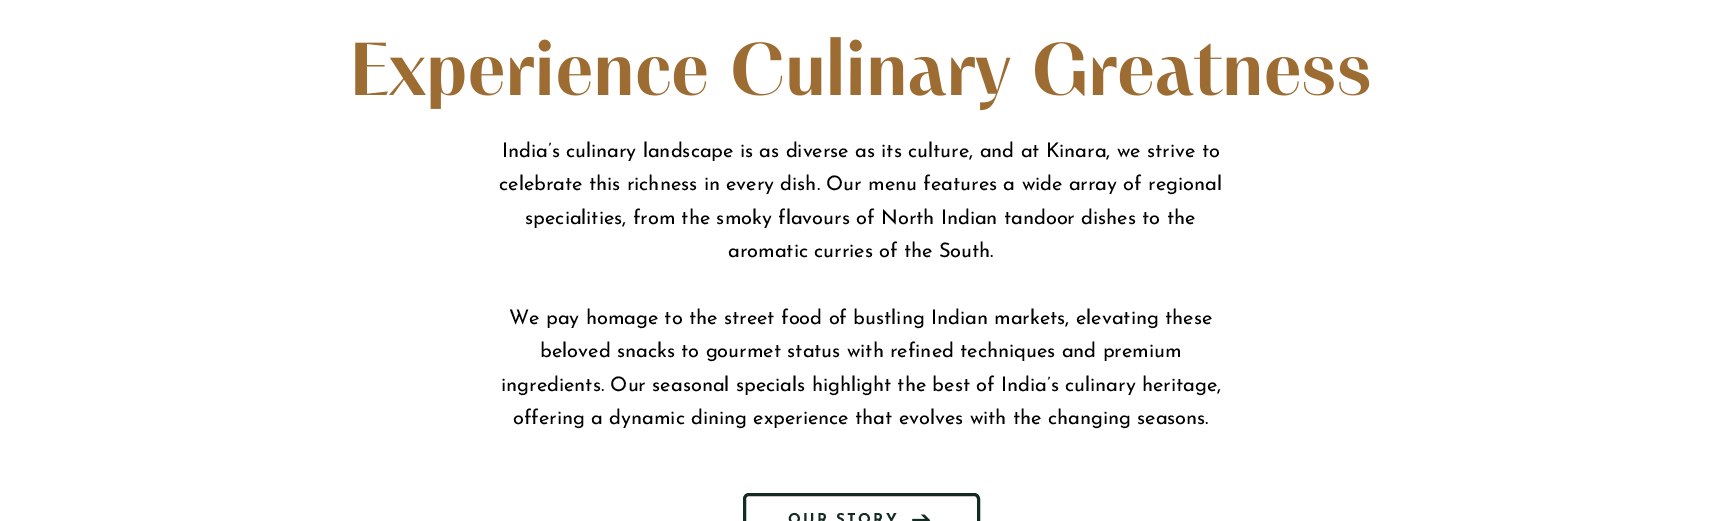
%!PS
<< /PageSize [1721 521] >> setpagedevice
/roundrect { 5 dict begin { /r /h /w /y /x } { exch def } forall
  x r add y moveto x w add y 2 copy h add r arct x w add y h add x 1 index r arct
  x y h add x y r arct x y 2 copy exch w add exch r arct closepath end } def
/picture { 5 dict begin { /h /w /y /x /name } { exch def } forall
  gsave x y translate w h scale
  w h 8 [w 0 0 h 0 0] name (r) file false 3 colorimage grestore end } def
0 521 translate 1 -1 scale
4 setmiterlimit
1 setgray
0 0 1721 521 rectfill
(img1.rgb) 355 37 1015 74 picture
/JosefinSans-Thin [20 0 0 -20 0 0] selectfont
0 setgray
502 157 moveto (India’s culinary landscape is as diverse as its culture, and at Kinara, we strive to) show
499 190 moveto (celebrate this richness in every dish. Our menu features a wide array of regional) show
525 224 moveto (specialities, from the smoky flavours of North Indian tandoor dishes to the) show
728 257 moveto (aromatic curries of the South.) show
509 324 moveto (We pay homage to the street food of bustling Indian markets, elevating these) show
540 357 moveto (beloved snacks to gourmet status with refined techniques and premium) show
501 391 moveto (ingredients. Our seasonal specials highlight the best of India’s culinary heritage,) show
513 424 moveto (offering a dynamic dining experience that evolves with the changing seasons.) show
0.075 0.169 0.137 setrgbcolor
3 setlinewidth
744.5 494.5 234 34 4.5 roundrect stroke
gsave
788 513 111 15 rectclip
/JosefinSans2-Thin [15 0 0 -15 0 0] selectfont
788 524 moveto 2.25 0 (OUR STORY) ashow
grestore
(img2.rgb) 912 514 19 7 picture
showpage
